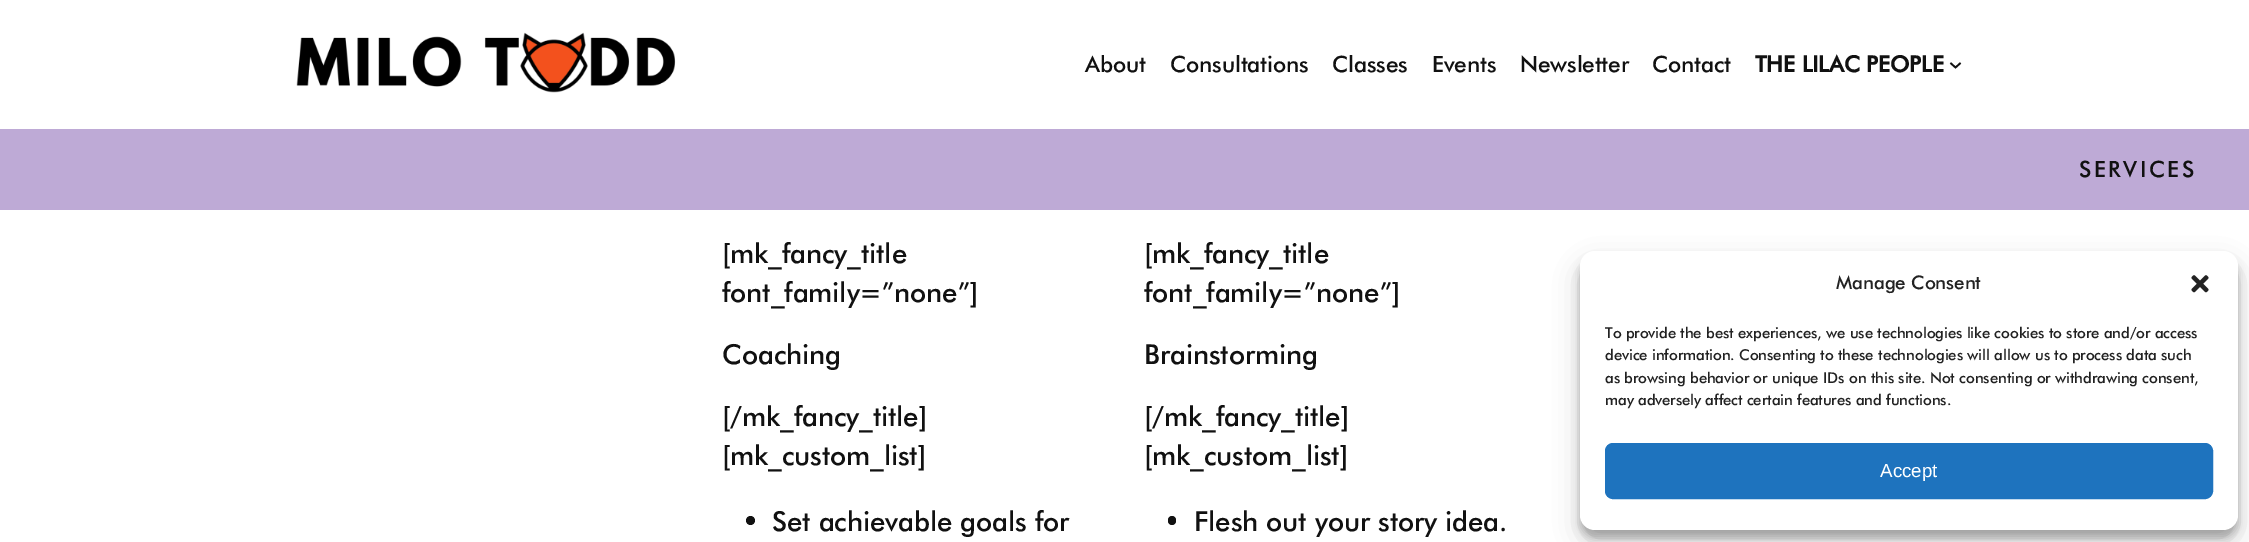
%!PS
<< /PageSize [2249 542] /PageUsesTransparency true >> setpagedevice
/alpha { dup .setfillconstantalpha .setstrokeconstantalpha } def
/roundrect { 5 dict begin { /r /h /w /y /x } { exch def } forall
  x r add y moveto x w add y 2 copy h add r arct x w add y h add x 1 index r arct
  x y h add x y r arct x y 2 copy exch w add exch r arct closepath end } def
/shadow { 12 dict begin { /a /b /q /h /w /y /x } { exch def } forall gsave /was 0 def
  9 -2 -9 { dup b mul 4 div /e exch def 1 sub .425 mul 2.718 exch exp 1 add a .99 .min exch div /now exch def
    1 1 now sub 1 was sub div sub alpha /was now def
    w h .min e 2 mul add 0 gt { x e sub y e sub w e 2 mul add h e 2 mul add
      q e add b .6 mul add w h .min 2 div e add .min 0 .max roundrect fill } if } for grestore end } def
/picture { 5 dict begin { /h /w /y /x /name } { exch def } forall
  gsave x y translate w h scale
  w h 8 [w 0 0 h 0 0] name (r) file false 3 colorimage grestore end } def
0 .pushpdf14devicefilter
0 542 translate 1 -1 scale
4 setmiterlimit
1 setgray
0 0 2249 542 rectfill
(img1.rgb) 296 32 380 61 picture
/Futura-Medium [22.5 0 0 -22.5 0 0] selectfont
0.067 setgray
1085 72 moveto -0.12 0 (About) ashow
1170 72 moveto -0.12 0 (Consultations) ashow
1332 72 moveto -0.12 0 (Classes) ashow
1432 72 moveto -0.12 0 (Events) ashow
1520 72 moveto -0.12 0 (Newsletter) ashow
1652 72 moveto -0.12 0 (Contact) ashow
/Futura-Bold [22.5 0 0 -22.5 0 0] selectfont
1755 72 moveto -0.12 0 (THE LILAC PEOPLE) ashow
1.7 setlinewidth
newpath 1950.5 63 moveto 1955.5 67.5 lineto 1960.5 63 lineto stroke
0.745 0.667 0.839 setrgbcolor
0 129 2249 81 rectfill
/Futura-Medium [22.5 0 0 -22.5 0 0] selectfont
0.067 setgray
2079 177 moveto 2.5 0 (SERVICES) ashow
/Futura-Medium [27.5 0 0 -27.5 0 0] selectfont
722 263 moveto -0.12 0 ([mk_fancy_title) ashow
722 302 moveto -0.12 0 (font_family=”none”]) ashow
722 364 moveto -0.12 0 (Coaching) ashow
722 426 moveto -0.12 0 ([/mk_fancy_title]) ashow
722 465 moveto -0.12 0 ([mk_custom_list]) ashow
newpath 750.5 520.5 4.5 0 360 arc closepath fill
772 531 moveto -0.12 0 (Set achievable goals for) ashow
1144 263 moveto -0.12 0 ([mk_fancy_title) ashow
1144 302 moveto -0.12 0 (font_family=”none”]) ashow
1144 364 moveto -0.12 0 (Brainstorming) ashow
1144 426 moveto -0.12 0 ([/mk_fancy_title]) ashow
1144 465 moveto -0.12 0 ([mk_custom_list]) ashow
1168 516 8 9 4 roundrect fill
1194 531 moveto -0.12 0 (Flesh out your story idea.) ashow
0 setgray
1580 259 658 279 15 4 0.23 shadow
1580 264 658 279 15 12.5 0.19 shadow
1 setgray
1580 251 658 279 15 roundrect fill
/Futura-Medium [18.75 0 0 -18.75 0 0] selectfont
0.133 setgray
1836 289 moveto -0.12 0 (Manage Consent) ashow
(img2.rgb) 2191 275 18 18 picture
/Futura-Medium [15 0 0 -15 0 0] selectfont
1605 338 moveto -0.12 0 (To provide the best experiences, we use technologies like cookies to store and/or access) ashow
1605 360 moveto -0.12 0 (device information. Consenting to these technologies will allow us to process data such) ashow
1605 383 moveto -0.12 0 (as browsing behavior or unique IDs on this site. Not consenting or withdrawing consent,) ashow
1605 405 moveto -0.12 0 (may adversely affect certain features and functions.) ashow
0.118 0.451 0.745 setrgbcolor
1605.5 443.5 607 55 7.5 roundrect gsave fill grestore
1 setlinewidth
stroke
/LiberationSans-Regular [18.75 0 0 -18.75 0 0] selectfont
1 setgray
1880 477 moveto (Accept) show
.poppdf14devicefilter showpage
